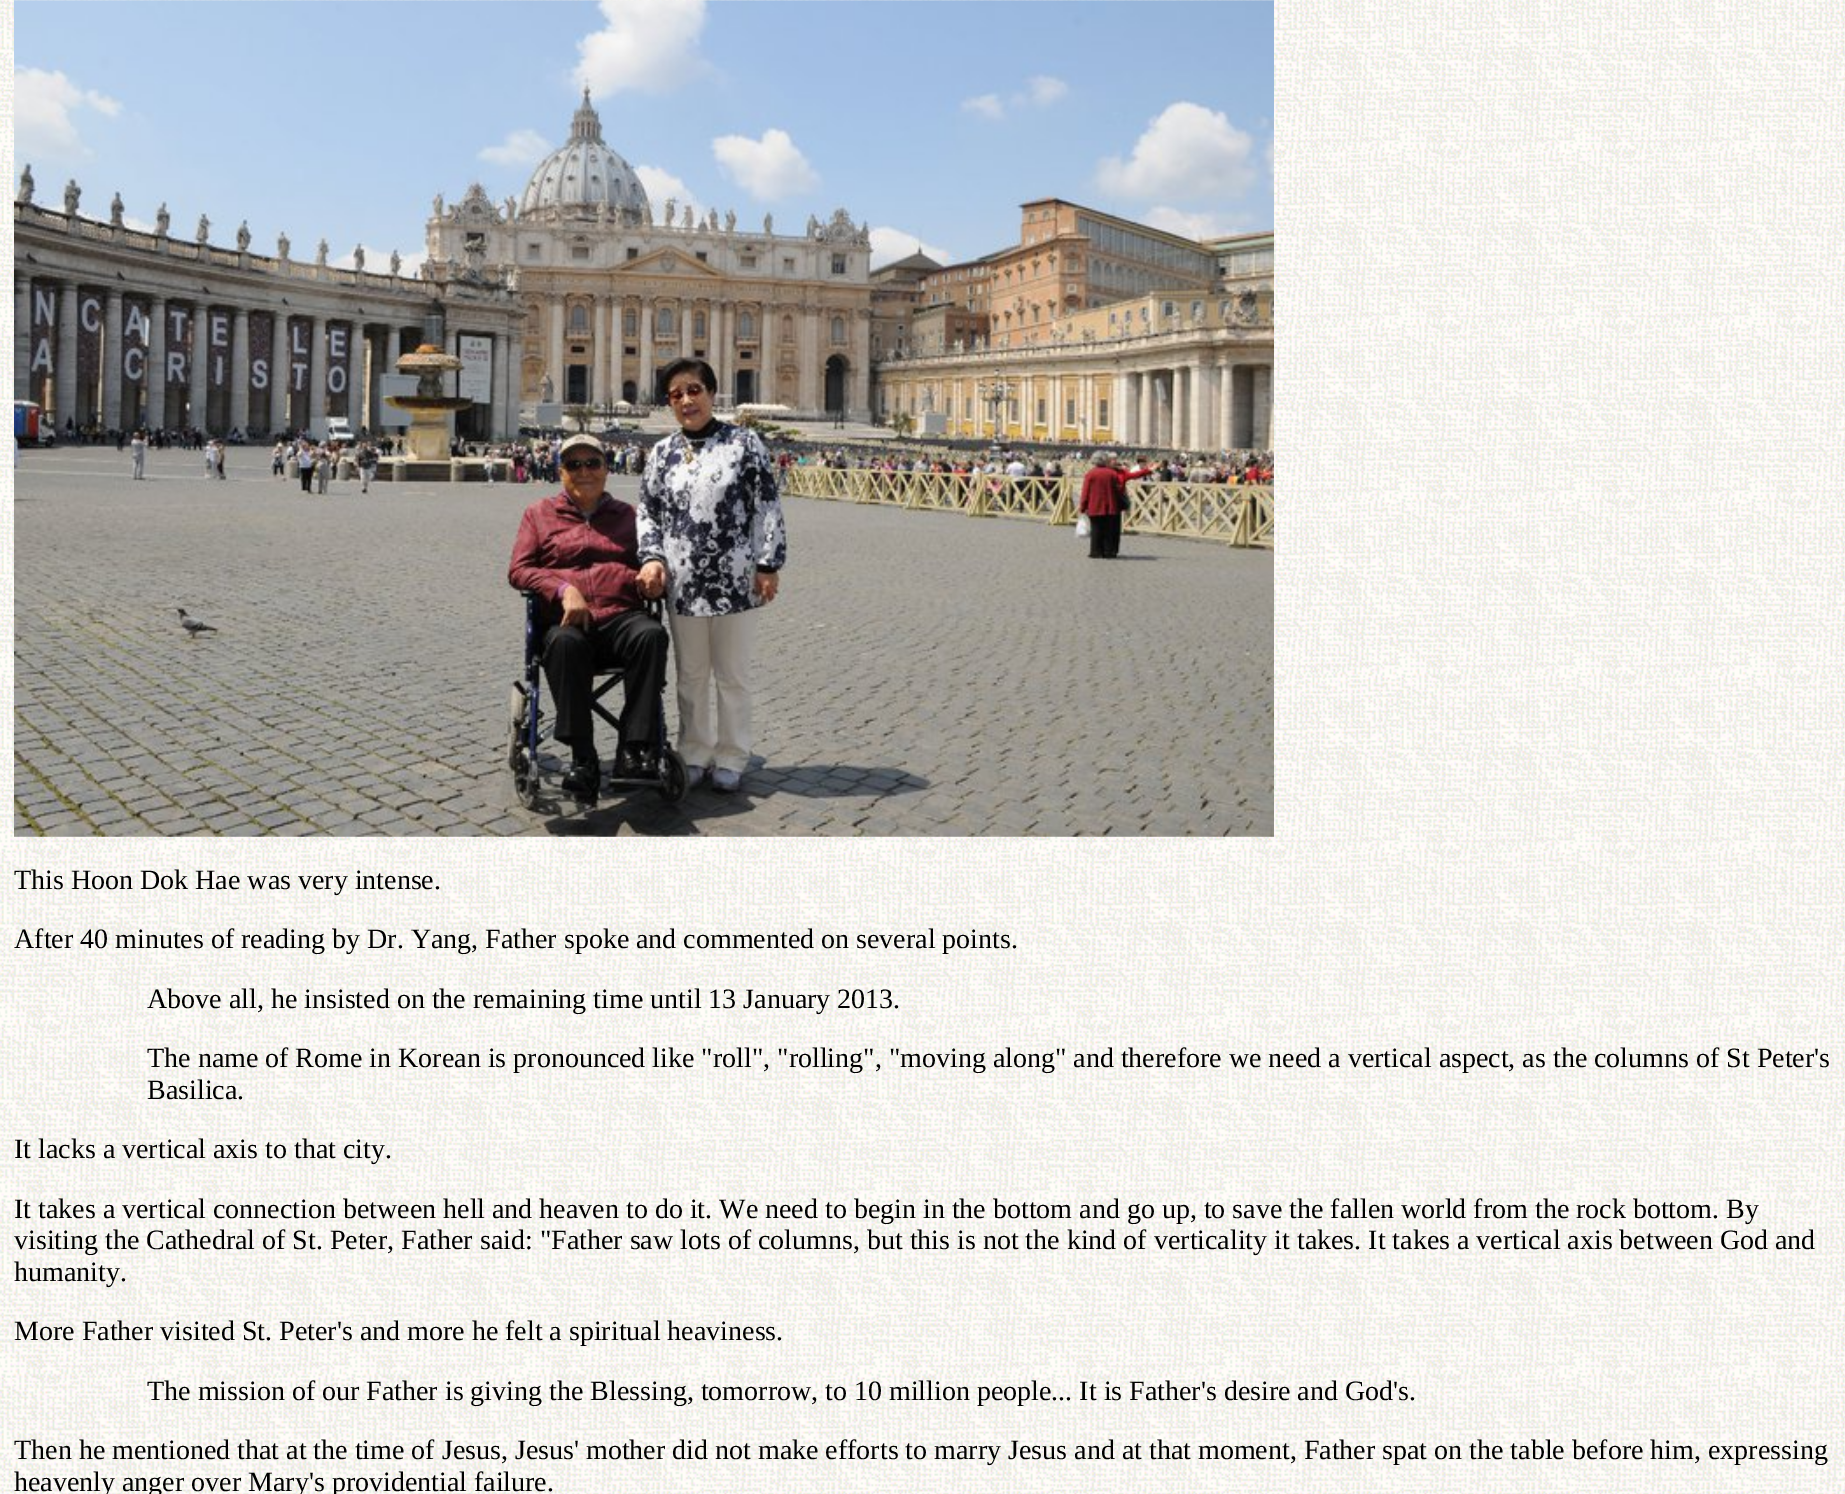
%!PS
<< /PageSize [1845 1494] >> setpagedevice
/picture { 5 dict begin { /h /w /y /x /name } { exch def } forall
  gsave x y translate w h scale
  w h 8 [w 0 0 h 0 0] name (r) file false 3 colorimage grestore end } def
0 1494 translate 1 -1 scale
4 setmiterlimit
1 setgray
0 0 1845 1494 rectfill
(img1.rgb) 0 0 1845 1494 picture
(img2.rgb) 14 0 1260 837 picture
/LiberationSerif-Regular [28 0 0 -28 0 0] selectfont
0 setgray
14 889 moveto (This Hoon Dok Hae was very intense.) show
14 948 moveto (After 40 minutes of reading by Dr. Yang, Father spoke and commented on several points.) show
147 1008 moveto (Above all, he insisted on the remaining time until 13 January 2013.) show
147 1067 moveto (The name of Rome in Korean is pronounced like "roll", "rolling", "moving along" and therefore we need a vertical aspect, as the columns of St Peter's) show
147 1099 moveto (Basilica.) show
14 1158 moveto (It lacks a vertical axis to that city.) show
14 1218 moveto (It takes a vertical connection between hell and heaven to do it. We need to begin in the bottom and go up, to save the fallen world from the rock bottom. By) show
14 1249 moveto (visiting the Cathedral of St. Peter, Father said: "Father saw lots of columns, but this is not the kind of verticality it takes. It takes a vertical axis between God and) show
14 1281 moveto (humanity.) show
14 1340 moveto (More Father visited St. Peter's and more he felt a spiritual heaviness.) show
147 1400 moveto (The mission of our Father is giving the Blessing, tomorrow, to 10 million people... It is Father's desire and God's.) show
14 1459 moveto (Then he mentioned that at the time of Jesus, Jesus' mother did not make efforts to marry Jesus and at that moment, Father spat on the table before him, expressing) show
14 1491 moveto (heavenly anger over Mary's providential failure.) show
showpage
